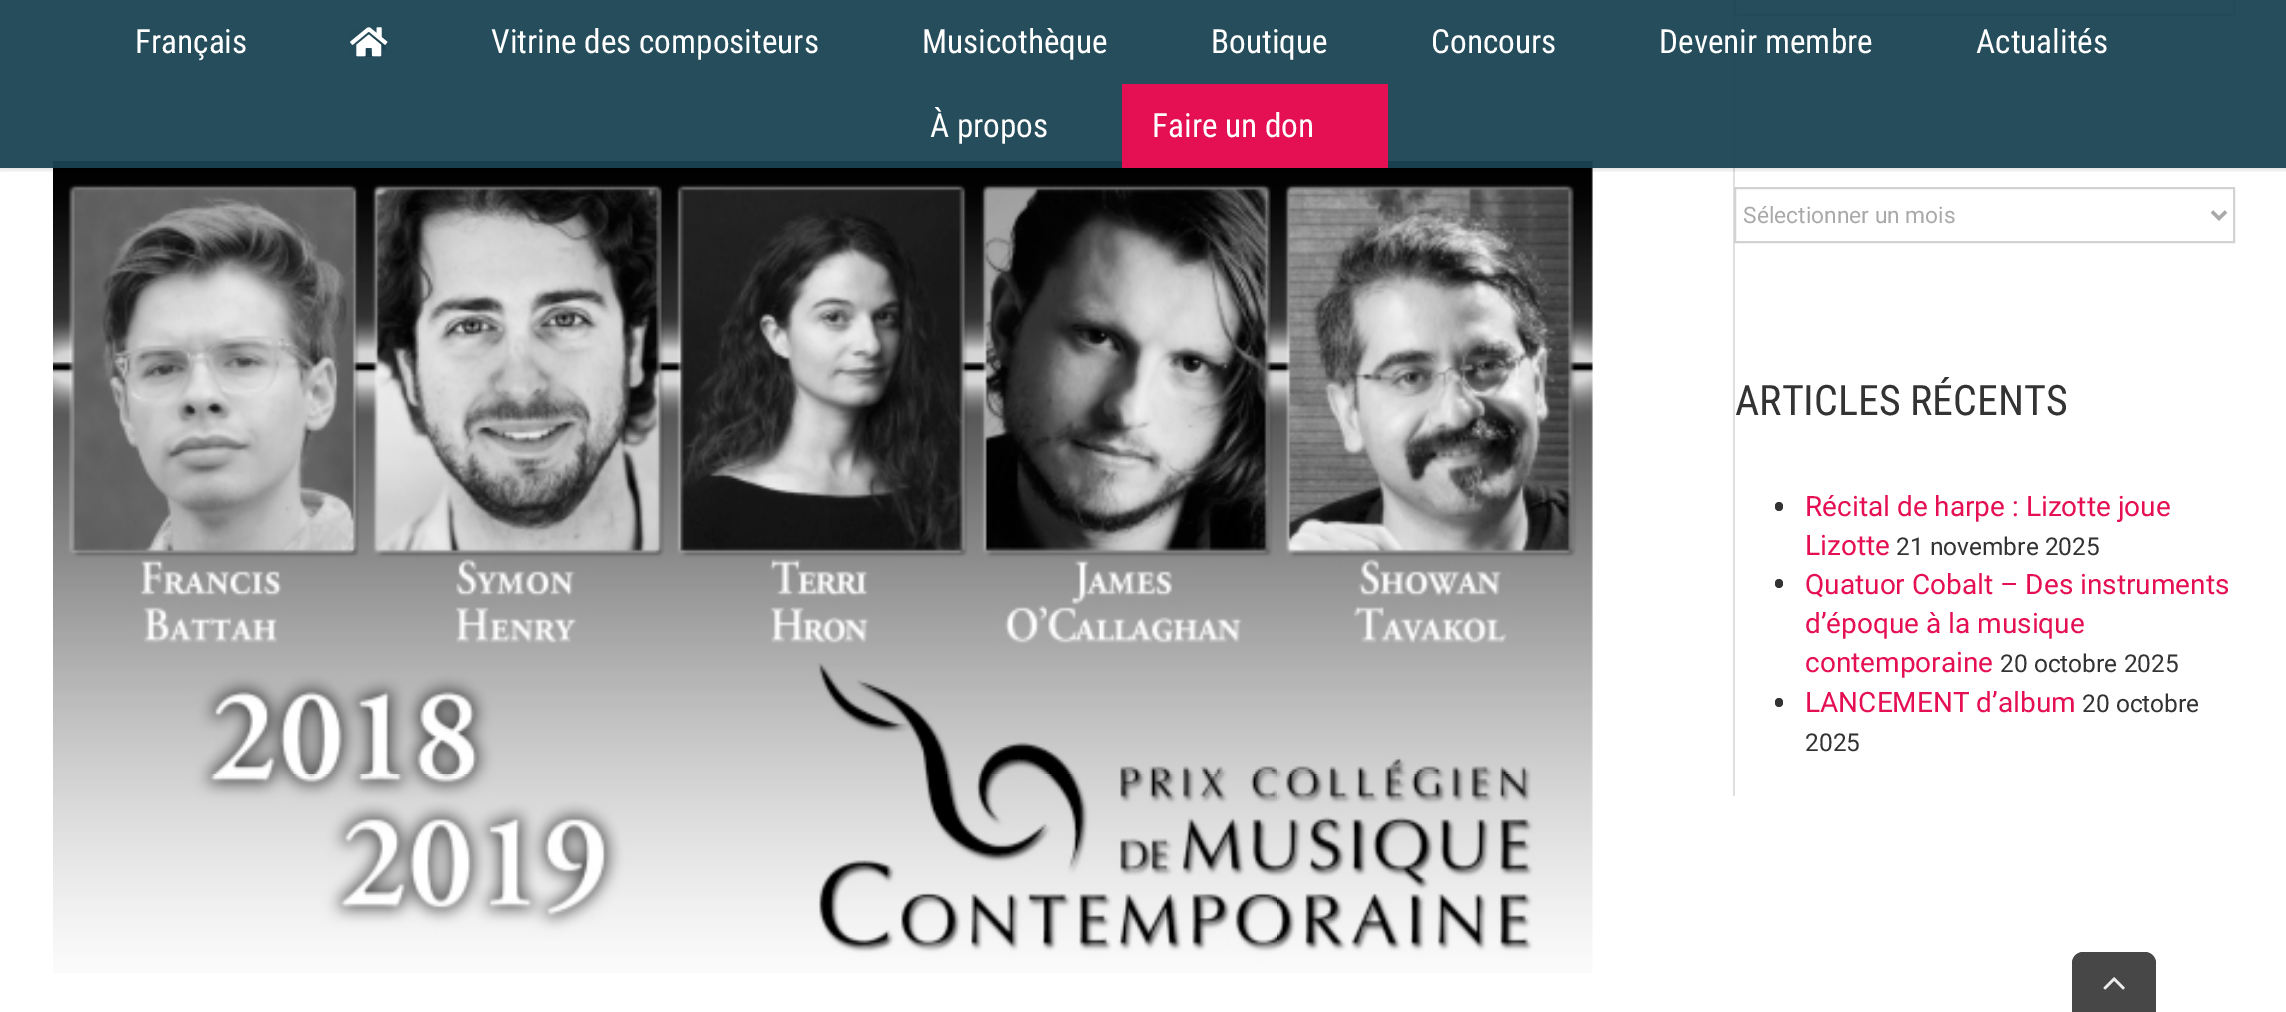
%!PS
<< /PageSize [2286 1012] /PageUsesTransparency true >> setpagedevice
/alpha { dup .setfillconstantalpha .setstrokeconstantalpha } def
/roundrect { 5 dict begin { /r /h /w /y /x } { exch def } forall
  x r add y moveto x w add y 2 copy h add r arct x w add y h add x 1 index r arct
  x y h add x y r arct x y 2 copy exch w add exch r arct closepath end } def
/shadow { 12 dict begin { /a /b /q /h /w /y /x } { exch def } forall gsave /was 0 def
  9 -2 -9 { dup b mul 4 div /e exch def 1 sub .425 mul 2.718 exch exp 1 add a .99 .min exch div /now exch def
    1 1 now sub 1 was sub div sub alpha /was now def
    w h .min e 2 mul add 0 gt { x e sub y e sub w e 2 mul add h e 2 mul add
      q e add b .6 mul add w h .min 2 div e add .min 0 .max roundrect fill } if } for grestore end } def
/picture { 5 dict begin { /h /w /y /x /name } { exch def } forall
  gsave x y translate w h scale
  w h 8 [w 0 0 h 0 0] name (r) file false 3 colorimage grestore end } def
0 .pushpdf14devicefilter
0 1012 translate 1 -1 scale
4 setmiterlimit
1 setgray
0 0 2286 1012 rectfill
(img2.rgb) 53 161 1540 812 picture
0.878 0.871 0.871 setrgbcolor
1733 0 2 796 rectfill
0.824 setgray
2 setlinewidth
1735 -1 499 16 rectstroke
gsave
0 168 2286 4 rectclip
0 setgray
0 2 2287 168 0 2.5 0.12 shadow
grestore
0.95 alpha
0.102 0.263 0.322 setrgbcolor
0 0 2286 168 rectfill
/RobotoCondensed-Regular [33.25 0 0 -33.25 0 0] selectfont
1 alpha
1 setgray
135 53 moveto (Français) show
(img1.rgb) 350 27 38 30 picture
491 53 moveto (Vitrine des compositeurs) show
922 53 moveto (Musicothèque) show
1211 53 moveto (Boutique) show
1431 53 moveto (Concours) show
1659 53 moveto (Devenir membre) show
1976 53 moveto (Actualités) show
930 137 moveto (À propos) show
0.898 0.063 0.325 setrgbcolor
1122 84 266 84 rectfill
1 setgray
1152 137 moveto (Faire un don) show
0.824 setgray
1735 188 499 54 rectstroke
0.667 0.663 0.663 setrgbcolor
3.5 setlinewidth
newpath 2212 211.5 moveto 2219 218.5 lineto 2226 211.5 lineto stroke
/Roboto-Regular [22.75 0 0 -22.75 0 0] selectfont
1743 223 moveto (Sélectionner un mois) show
/RobotoCondensed-Regular [42 0 0 -42 0 0] selectfont
0.2 setgray
1735 415 moveto (ARTICLES RÉCENTS) show
1775 502 8 9 4 roundrect fill
/Roboto-Regular [28 0 0 -28 0 0] selectfont
0.898 0.063 0.325 setrgbcolor
1805 516 moveto (Récital de harpe : Lizotte joue) show
1805 555 moveto (Lizotte) show
/Roboto-Regular [24.5 0 0 -24.5 0 0] selectfont
0.2 setgray
1896 555 moveto (21 novembre 2025) show
1775 579 8 9 4 roundrect fill
/Roboto-Regular [28 0 0 -28 0 0] selectfont
0.898 0.063 0.325 setrgbcolor
1805 594 moveto (Quatuor Cobalt – Des instruments) show
1805 633 moveto (d’époque à la musique) show
1805 672 moveto (contemporaine) show
/Roboto-Regular [24.5 0 0 -24.5 0 0] selectfont
0.2 setgray
2000 672 moveto (20 octobre 2025) show
1775 698 8 9 4 roundrect fill
/Roboto-Regular [28 0 0 -28 0 0] selectfont
0.898 0.063 0.325 setrgbcolor
1805 712 moveto (LANCEMENT d’album) show
/Roboto-Regular [24.5 0 0 -24.5 0 0] selectfont
0.2 setgray
2082 712 moveto (20 octobre) show
1805 751 moveto (2025) show
0.278 setgray
newpath 2083 952 moveto 2145 952 lineto 2151 952 2156 957 2156 963 curveto 2156 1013 lineto 2072 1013 lineto 2072 963 lineto 2072 957 2077 952 2083 952 curveto closepath fill
(img3.rgb) 2103 977 22 13 picture
.poppdf14devicefilter showpage
